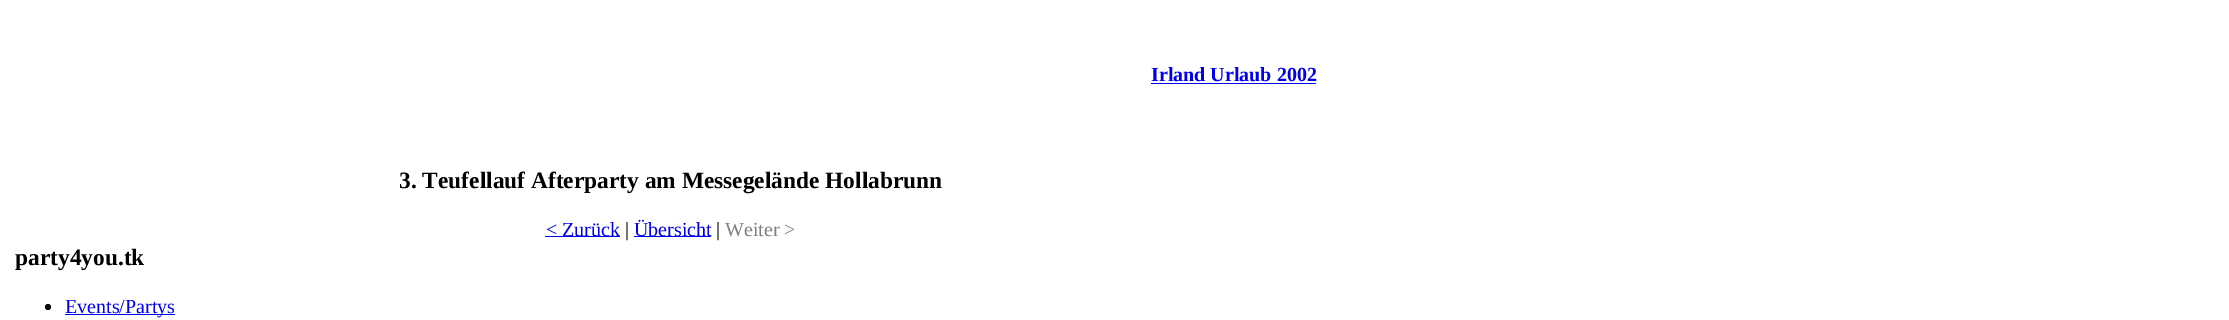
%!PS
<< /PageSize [2229 320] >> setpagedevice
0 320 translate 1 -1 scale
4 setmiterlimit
1 setgray
0 0 2229 320 rectfill
/LiberationSerif-Bold [20 0 0 -20 0 0] selectfont
0 0 0.933 setrgbcolor
1151 81 moveto (Irland Urlaub 2002) show
1151 83 165 1 rectfill
/LiberationSerif-Bold [23.4 0 0 -23.4 0 0] selectfont
0 setgray
399 188 moveto (3. Teufellauf Afterparty am Messegelände Hollabrunn) show
0 0 0.933 setrgbcolor
545 236 75 1 rectfill
/LiberationSerif-Regular [20 0 0 -20 0 0] selectfont
546 236 moveto (< Zurück) show
0 setgray
625 236 moveto (|) show
0 0 0.933 setrgbcolor
634 236 77 1 rectfill
634 236 moveto (Übersicht) show
0 setgray
716 236 moveto (|) show
0.502 setgray
725 236 moveto (Weiter >) show
/LiberationSerif-Bold [23.4 0 0 -23.4 0 0] selectfont
0 setgray
15 265 moveto (party4you.tk) show
newpath 48 307 3 0 360 arc closepath fill
0 0 0.933 setrgbcolor
65 314 110 1 rectfill
/LiberationSerif-Regular [20 0 0 -20 0 0] selectfont
65 313 moveto (Events/Partys) show
showpage
